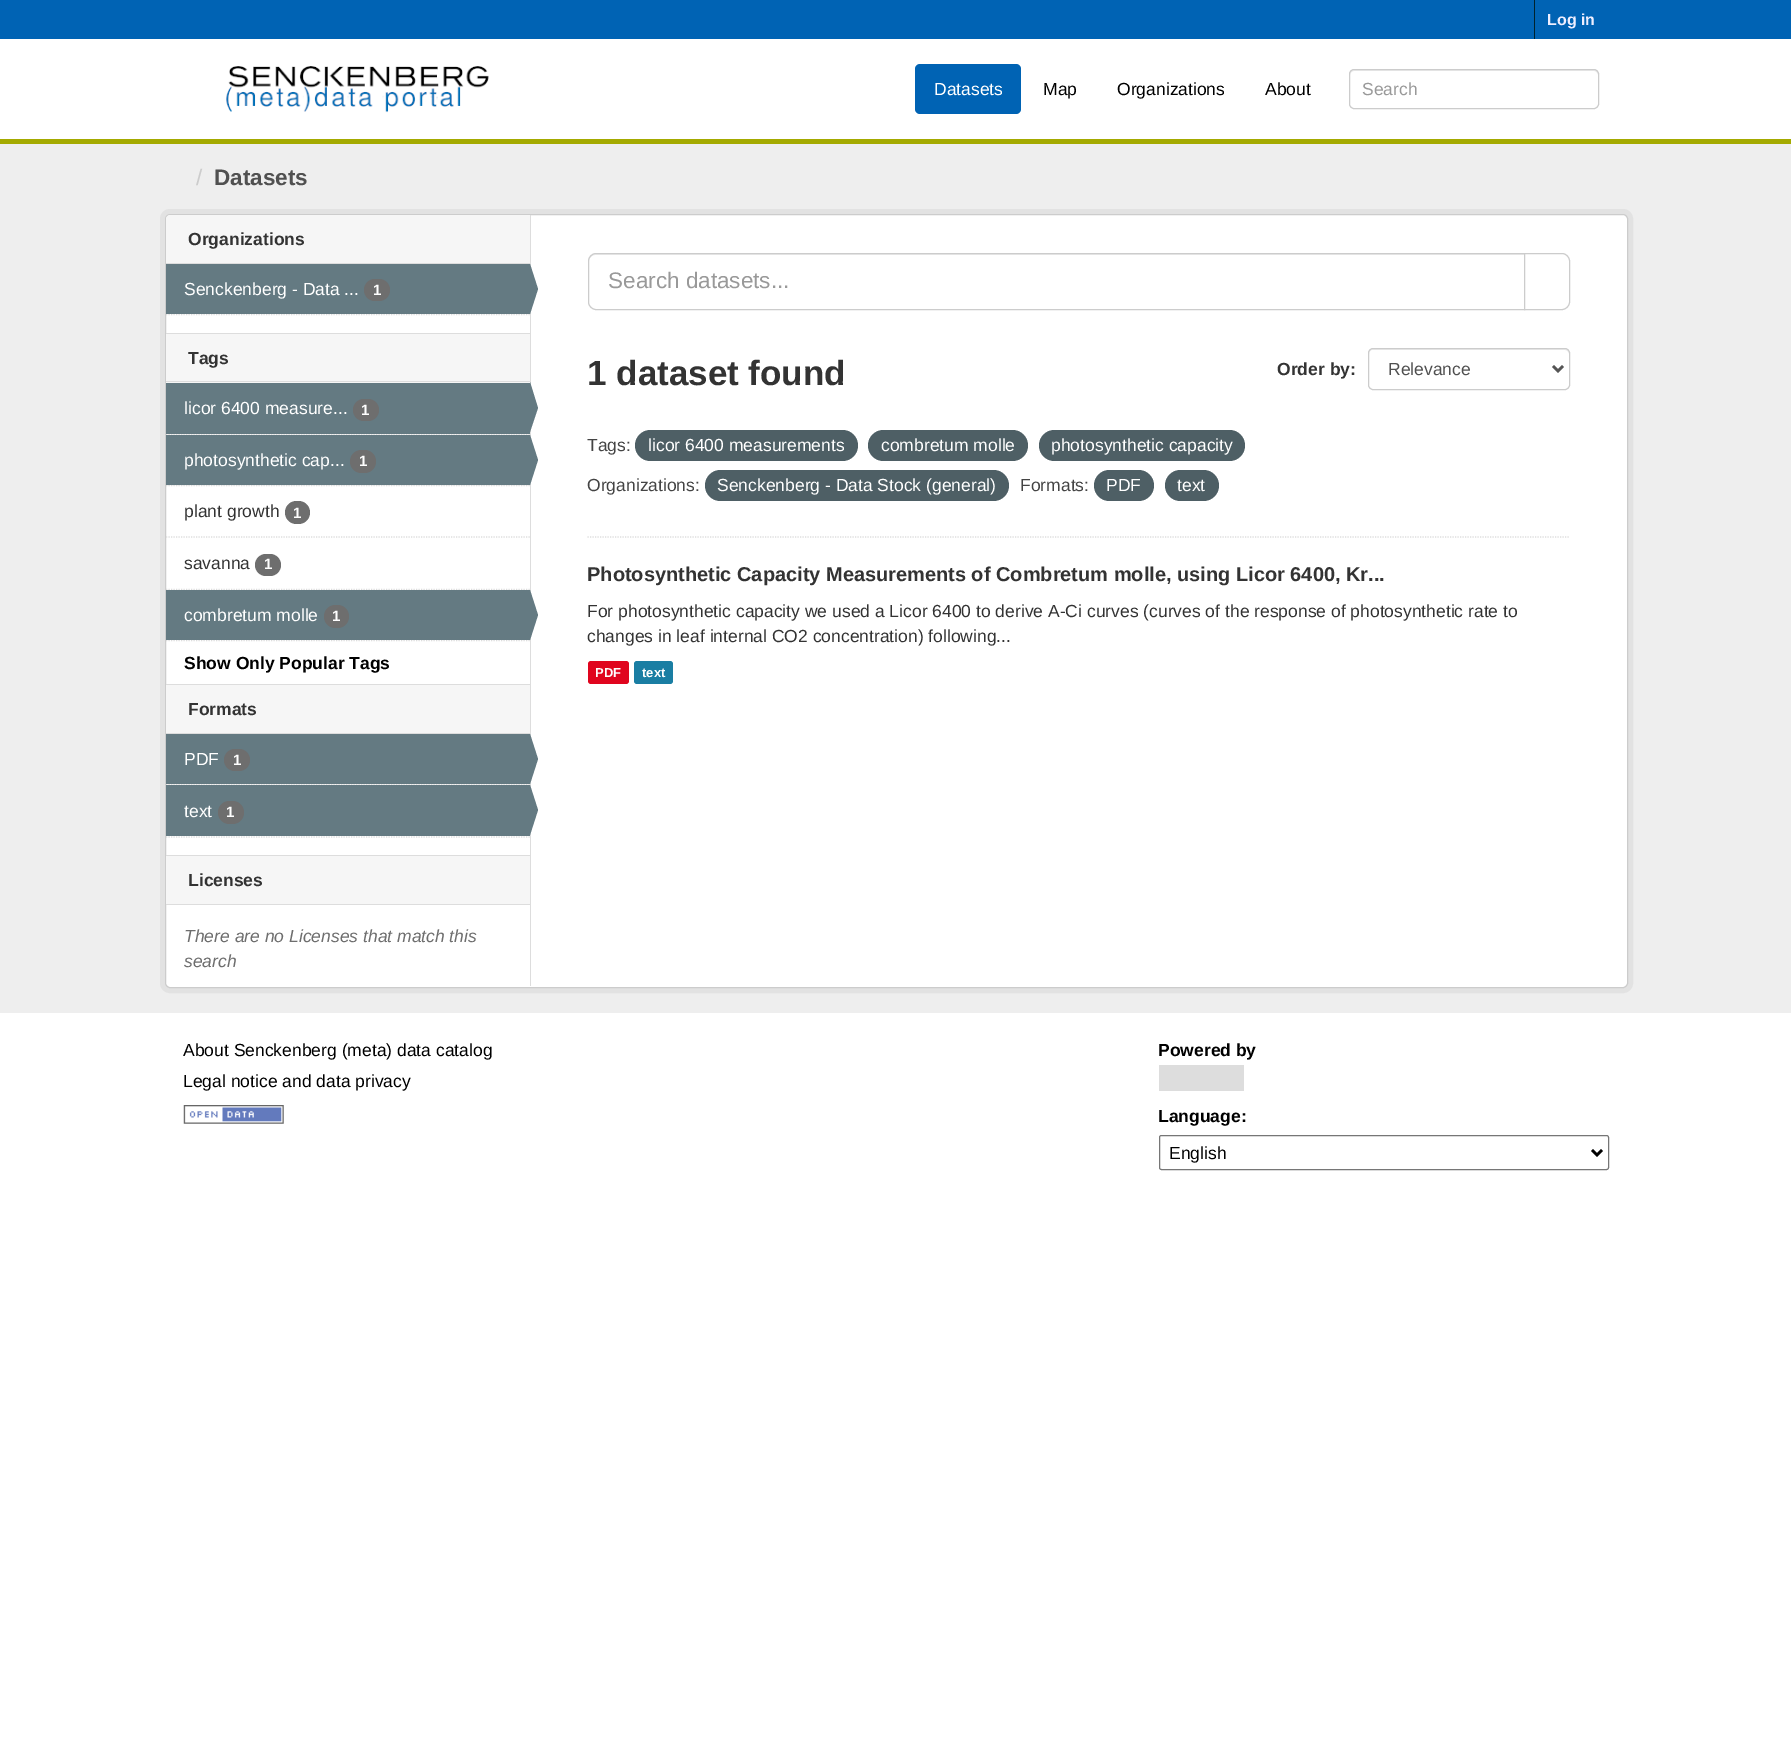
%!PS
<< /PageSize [1791 1755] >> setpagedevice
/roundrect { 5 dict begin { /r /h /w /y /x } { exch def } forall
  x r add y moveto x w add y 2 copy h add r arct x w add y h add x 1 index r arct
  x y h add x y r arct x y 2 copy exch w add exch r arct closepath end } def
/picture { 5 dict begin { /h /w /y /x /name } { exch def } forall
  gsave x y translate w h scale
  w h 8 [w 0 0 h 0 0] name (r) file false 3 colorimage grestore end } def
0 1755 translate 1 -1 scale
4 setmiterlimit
1 setgray
0 0 1791 1755 rectfill
0 0.388 0.706 setrgbcolor
0 0 1791 39 rectfill
0 0.137 0.18 setrgbcolor
1534 0 1 39 rectfill
/LiberationSans-Bold [16 0 0 -16 0 0] selectfont
0.933 0.933 1 setrgbcolor
1547 25 moveto (Log in) show
0.643 0.667 0 setrgbcolor
0 139 1791 5 rectfill
(img1.rgb) 226 66 263 47 picture
0 0.388 0.706 setrgbcolor
915 64 106 50 5 roundrect fill
/LiberationSans-Regular [17.5 0 0 -17.5 0 0] selectfont
1 setgray
934 95 moveto (Datasets) show
0 setgray
1043 95 moveto (Map) show
1117 95 moveto (Organizations) show
1265 95 moveto (About) show
0.925 setgray
newpath 1354 71 moveto 1594 71 lineto 1596 71 1598 73 1598 75 curveto 1598 74 lineto 1598 72 1596 70 1594 70 curveto 1354 70 lineto 1352 70 1350 72 1350 74 curveto 1350 75 lineto 1350 73 1352 71 1354 71 curveto closepath fill
0.8 setgray
1349.5 69.5 249 39 4.5 roundrect stroke
0.6 setgray
1362 95 moveto (Search) show
0.933 setgray
0 144 1791 869 rectfill
/LiberationSans-Regular [22.5 0 0 -22.5 0 0] selectfont
0.8 setgray
196 185 moveto (/) show
/LiberationSans-Bold [22.5 0 0 -22.5 0 0] selectfont
0.314 setgray
214 185 moveto (Datasets) show
0.886 setgray
5 setlinewidth
162.5 211.5 1468 779 7.5 roundrect stroke
1 setgray
165.5 214.5 1462 773 4.5 roundrect gsave fill grestore
0.8 setgray
1 setlinewidth
stroke
0.965 setgray
newpath 170 215 moveto 530 215 lineto 530 264 lineto 166 264 lineto 166 219 lineto 166 217 168 215 170 215 curveto closepath fill
0.867 setgray
166 263 364 1 rectfill
/LiberationSans-Bold [17.5 0 0 -17.5 0 0] selectfont
0.2 setgray
188 245 moveto (Organizations) show
0.867 setgray
1.2 setlinewidth
[1.25 1.25] 0 setdash
newpath 166 314.5 moveto 530 314.5 lineto stroke
0.392 0.478 0.51 setrgbcolor
166 264 364 50 rectfill
/LiberationSans-Regular [17.5 0 0 -17.5 0 0] selectfont
1 setgray
184 295 moveto (Senckenberg - Data ...) show
0.431 setgray
364 279 26 22 11 roundrect fill
/LiberationSans-Bold [15 0 0 -15 0 0] selectfont
1 setgray
373 295 moveto (1) show
0.867 setgray
530 215 1 771 rectfill
0.392 0.478 0.51 setrgbcolor
newpath 530 314 moveto 530 264 lineto 538 289 lineto closepath fill
0.965 setgray
166 334 364 49 rectfill
0.867 setgray
166 333 364 1 rectfill
166 381 364 1 rectfill
/LiberationSans-Bold [17.5 0 0 -17.5 0 0] selectfont
0.2 setgray
188 364 moveto (Tags) show
0.965 setgray
167 434 363 1 rectfill
0.867 setgray
newpath 166 434.5 moveto 530 434.5 lineto stroke
0.392 0.478 0.51 setrgbcolor
166 383 364 51 rectfill
/LiberationSans-Regular [17.5 0 0 -17.5 0 0] selectfont
1 setgray
184 414 moveto (licor 6400 measure...) show
0.431 setgray
353 399 26 22 11 roundrect fill
/LiberationSans-Bold [15 0 0 -15 0 0] selectfont
1 setgray
361 415 moveto (1) show
0.392 0.478 0.51 setrgbcolor
newpath 530 432 moveto 530 382 lineto 538 408 lineto closepath fill
0.965 setgray
167 485 363 1 rectfill
0.867 setgray
newpath 166 485.5 moveto 530 485.5 lineto stroke
0.392 0.478 0.51 setrgbcolor
166 435 364 50 rectfill
/LiberationSans-Regular [17.5 0 0 -17.5 0 0] selectfont
1 setgray
184 466 moveto (photosynthetic cap...) show
0.431 setgray
350 450 26 23 11.5 roundrect fill
/LiberationSans-Bold [15 0 0 -15 0 0] selectfont
1 setgray
359 466 moveto (1) show
0.392 0.478 0.51 setrgbcolor
newpath 530 485 moveto 530 435 lineto 538 460 lineto closepath fill
0.867 setgray
newpath 166 537 moveto 530 537 lineto stroke
/LiberationSans-Regular [17.5 0 0 -17.5 0 0] selectfont
0.2 setgray
184 517 moveto (plant growth) show
0.431 setgray
285 501 25 23 11.5 roundrect fill
/LiberationSans-Bold [15 0 0 -15 0 0] selectfont
1 setgray
293 518 moveto (1) show
0.867 setgray
newpath 166 589.5 moveto 530 589.5 lineto stroke
/LiberationSans-Regular [17.5 0 0 -17.5 0 0] selectfont
0.2 setgray
184 569 moveto (savanna) show
0.431 setgray
255 554 26 22 11 roundrect fill
/LiberationSans-Bold [15 0 0 -15 0 0] selectfont
1 setgray
264 569 moveto (1) show
0.867 setgray
newpath 166 640.5 moveto 530 640.5 lineto stroke
0.392 0.478 0.51 setrgbcolor
166 590 364 50 rectfill
/LiberationSans-Regular [17.5 0 0 -17.5 0 0] selectfont
1 setgray
184 621 moveto (combretum molle) show
0.431 setgray
324 605 25 23 11.5 roundrect fill
/LiberationSans-Bold [15 0 0 -15 0 0] selectfont
1 setgray
332 621 moveto (1) show
0.392 0.478 0.51 setrgbcolor
newpath 530 640 moveto 530 590 lineto 538 615 lineto closepath fill
/LiberationSans-Bold [17.5 0 0 -17.5 0 0] selectfont
0 setgray
184 669 moveto (Show Only Popular Tags) show
0.965 setgray
166 685 364 48 rectfill
0.867 setgray
166 684 364 1 rectfill
166 733 364 1 rectfill
0.2 setgray
188 715 moveto (Formats) show
0.965 setgray
167 784 363 1 rectfill
0.867 setgray
newpath 166 784.5 moveto 530 784.5 lineto stroke
0.392 0.478 0.51 setrgbcolor
166 734 364 50 rectfill
/LiberationSans-Regular [17.5 0 0 -17.5 0 0] selectfont
1 setgray
184 765 moveto (PDF) show
0.431 setgray
224 749 26 22 11 roundrect fill
/LiberationSans-Bold [15 0 0 -15 0 0] selectfont
1 setgray
233 765 moveto (1) show
0.392 0.478 0.51 setrgbcolor
newpath 530 784 moveto 530 734 lineto 538 759 lineto closepath fill
166 785 364 51 rectfill
/LiberationSans-Regular [17.5 0 0 -17.5 0 0] selectfont
1 setgray
184 817 moveto (text) show
0.431 setgray
218 801 26 23 11.5 roundrect fill
/LiberationSans-Bold [15 0 0 -15 0 0] selectfont
1 setgray
226 817 moveto (1) show
0.392 0.478 0.51 setrgbcolor
newpath 530 835 moveto 530 785 lineto 538 810 lineto closepath fill
0.867 setgray
newpath 166 837 moveto 530 837 lineto stroke
0.965 setgray
166 856 364 48 rectfill
0.867 setgray
166 855 364 1 rectfill
166 904 364 1 rectfill
/LiberationSans-Bold [17.5 0 0 -17.5 0 0] selectfont
0.2 setgray
188 886 moveto (Licenses) show
/LiberationSans-Italic [17.5 0 0 -17.5 0 0] selectfont
0.431 setgray
184 942 moveto (There are no Licenses that match this) show
184 967 moveto (search) show
0.867 setgray
newpath 587.5 537 moveto 1570 537 lineto stroke
0.925 setgray
newpath 595 255 moveto 1524 255 lineto 1524 254 lineto 595 254 lineto 592 254 589 257 589 260 curveto 589 261 lineto 589 258 592 255 595 255 curveto closepath fill
0.8 setgray
1 setlinewidth
[] 0 setdash
newpath 596 253.5 moveto 1524.5 253.5 lineto 1524.5 309.5 lineto 596 309.5 lineto 592 309.5 588.5 306 588.5 302 curveto 588.5 261 lineto 588.5 257 592 253.5 596 253.5 curveto closepath stroke
/LiberationSans-Regular [22.5 0 0 -22.5 0 0] selectfont
0.6 setgray
608 288 moveto (Search datasets...) show
1 setgray
newpath 1524.5 253.5 moveto 1562 253.5 lineto 1566 253.5 1569.5 257 1569.5 261 curveto 1569.5 302 lineto 1569.5 306 1566 309.5 1562 309.5 curveto 1524.5 309.5 lineto closepath gsave fill grestore
0.8 setgray
stroke
/LiberationSans-Bold [35 0 0 -35 0 0] selectfont
0.2 setgray
587 385 moveto (1 dataset found) show
/LiberationSans-Bold [17.5 0 0 -17.5 0 0] selectfont
1277 375 moveto (Order by:) show
0.925 setgray
newpath 1372 350 moveto 1565 350 lineto 1567 350 1569 352 1569 354 curveto 1569 353 lineto 1569 351 1567 349 1565 349 curveto 1373 349 lineto 1371 349 1369 351 1369 353 curveto 1369 354 lineto 1369 352 1370 350 1372 350 curveto closepath fill
0.8 setgray
1368.5 348.5 201 41 4.5 roundrect stroke
0.333 setgray
2.5 setlinewidth
newpath 1553 366 moveto 1558 371 lineto 1563 366 lineto stroke
/LiberationSans-Regular [17.5 0 0 -17.5 0 0] selectfont
0.314 setgray
1388 375 moveto (Relevance) show
0.267 setgray
587 451 moveto (Tags:) show
0.306 0.373 0.396 setrgbcolor
635 430 223 31 15.5 roundrect fill
1 setgray
648 451 moveto (licor 6400 measurements) show
0.306 0.373 0.396 setrgbcolor
868 430 160 31 15.5 roundrect fill
1 setgray
881 451 moveto (combretum molle) show
0.306 0.373 0.396 setrgbcolor
1039 430 206 31 15.5 roundrect fill
1 setgray
1051 451 moveto (photosynthetic capacity) show
0.267 setgray
587 491 moveto (Organizations:) show
0.306 0.373 0.396 setrgbcolor
705 470 304 31 15.5 roundrect fill
1 setgray
717 491 moveto (Senckenberg - Data Stock \(general\)) show
0.267 setgray
1020 491 moveto (Formats:) show
0.306 0.373 0.396 setrgbcolor
1094 470 60 31 15.5 roundrect fill
1 setgray
1106 491 moveto (PDF) show
0.306 0.373 0.396 setrgbcolor
1165 470 54 31 15.5 roundrect fill
1 setgray
1177 491 moveto (text) show
/LiberationSans-Bold [20 0 0 -20 0 0] selectfont
0.2 setgray
587 581 moveto (Photosynthetic Capacity Measurements of Combretum molle, using Licor 6400, Kr...) show
/LiberationSans-Regular [17.5 0 0 -17.5 0 0] selectfont
587 617 moveto (For photosynthetic capacity we used a Licor 6400 to derive A-Ci curves \(curves of the response of photosynthetic rate to) show
587 642 moveto (changes in leaf internal CO2 concentration\) following...) show
0.878 0.02 0.118 setrgbcolor
588 661 41 23 3 roundrect fill
/LiberationSans-Bold [13 0 0 -13 0 0] selectfont
1 setgray
595 677 moveto (PDF) show
0.102 0.494 0.639 setrgbcolor
634 661 39 23 3 roundrect fill
1 setgray
642 677 moveto (text) show
/LiberationSans-Regular [17.5 0 0 -17.5 0 0] selectfont
0 setgray
183 1056 moveto (About Senckenberg \(meta\) data catalog) show
183 1087 moveto (Legal notice and data privacy) show
(img2.rgb) 183 1105 101 19 picture
/LiberationSans-Bold [17.5 0 0 -17.5 0 0] selectfont
1158 1056 moveto (Powered by) show
0.867 setgray
1159 1065 85 26 rectfill
0 setgray
1158 1122 moveto (Language:) show
0.463 setgray
1 setlinewidth
1159.5 1135.5 449 34 2 roundrect stroke
0 setgray
2.5 setlinewidth
newpath 1592 1150 moveto 1597 1155 lineto 1602 1150 lineto stroke
/LiberationSans-Regular [17.5 0 0 -17.5 0 0] selectfont
1169 1159 moveto (English) show
showpage
